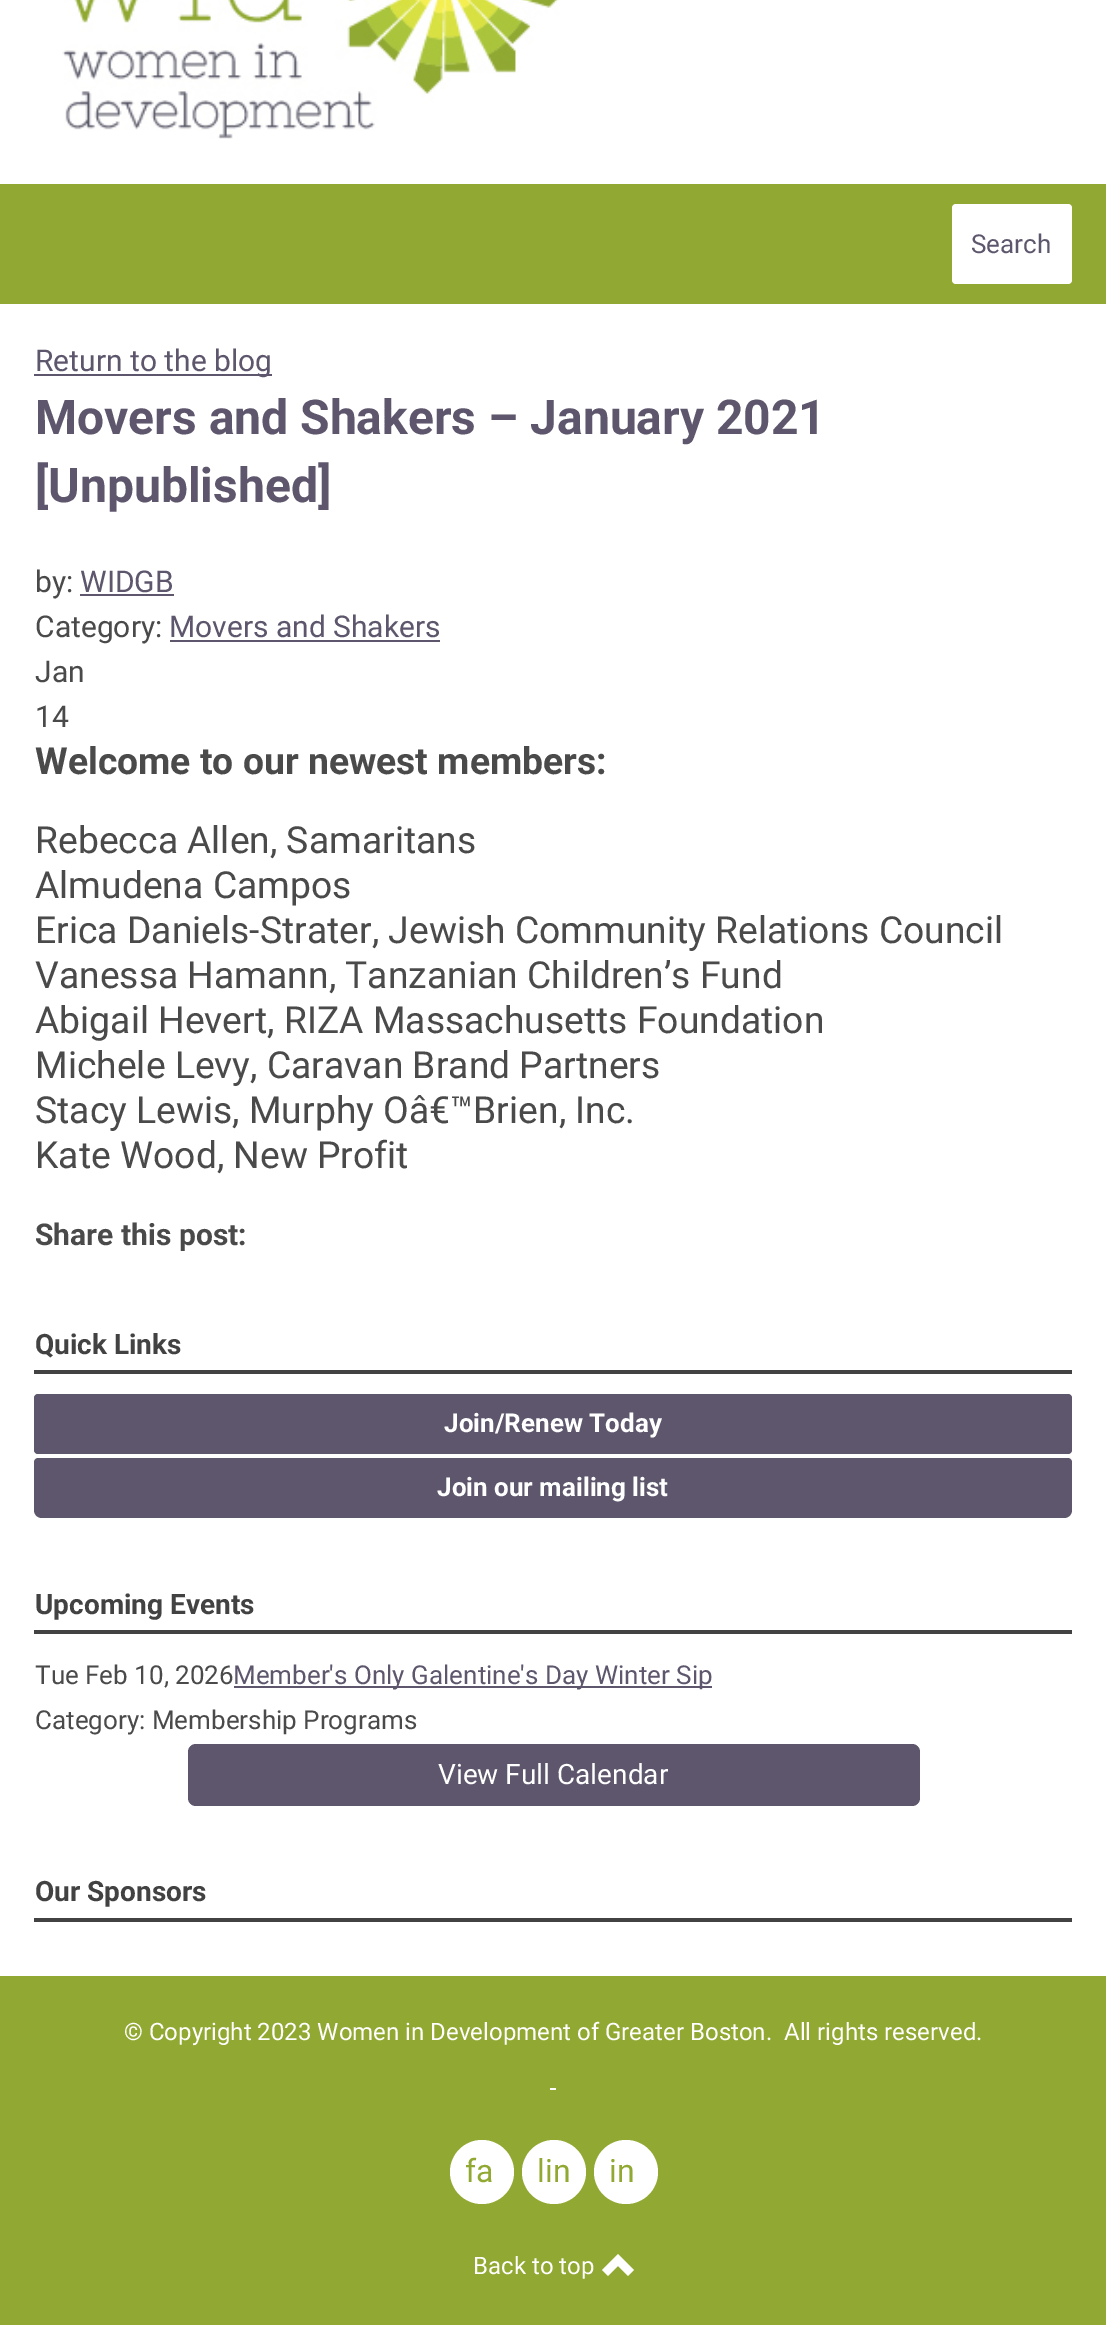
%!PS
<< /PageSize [1106 2325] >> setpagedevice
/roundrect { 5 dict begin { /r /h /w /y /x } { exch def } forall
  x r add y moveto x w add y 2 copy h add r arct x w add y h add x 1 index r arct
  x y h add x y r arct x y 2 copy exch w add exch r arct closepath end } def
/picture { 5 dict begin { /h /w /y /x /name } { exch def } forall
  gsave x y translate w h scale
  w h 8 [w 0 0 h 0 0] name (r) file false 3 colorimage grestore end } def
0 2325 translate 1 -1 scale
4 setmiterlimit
1 setgray
0 0 1106 2325 rectfill
(img1.rgb) 62 0 497 139 picture
0.569 0.663 0.196 setrgbcolor
0 184 1106 120 rectfill
1 setgray
952 204 120 80 4 roundrect fill
/Roboto-Regular [26 0 0 -26 0 0] selectfont
0.365 0.337 0.424 setrgbcolor
971 253 moveto (Search) show
34 374 238 2 rectfill
/Roboto-Regular [30 0 0 -30 0 0] selectfont
35 371 moveto (Return to the blog) show
/Roboto-Bold [48 0 0 -48 0 0] selectfont
35 434 moveto (Movers and Shakers – January 2021) show
35 502 moveto ([Unpublished]) show
/Roboto-Regular [30 0 0 -30 0 0] selectfont
0.29 setgray
35 592 moveto (by:) show
0.365 0.337 0.424 setrgbcolor
80 592 moveto (WIDGB) show
80 594 94 2 rectfill
0.29 setgray
35 637 moveto (Category:) show
0.365 0.337 0.424 setrgbcolor
169 637 moveto (Movers and Shakers) show
170 640 270 2 rectfill
0.29 setgray
35 682 moveto (Jan) show
35 727 moveto (14) show
/Roboto-Bold [37.3 0 0 -37.3 0 0] selectfont
35 774 moveto (Welcome to our newest members:) show
/Roboto-Regular [37.3 0 0 -37.3 0 0] selectfont
35 853 moveto (Rebecca Allen, Samaritans) show
35 898 moveto (Almudena Campos) show
35 943 moveto (Erica Daniels-Strater, Jewish Community Relations Council) show
35 988 moveto (Vanessa Hamann, Tanzanian Children’s Fund) show
35 1033 moveto (Abigail Hevert, RIZA Massachusetts Foundation) show
35 1078 moveto (Michele Levy, Caravan Brand Partners) show
35 1123 moveto (Stacy Lewis, Murphy Oâ€™Brien, Inc.) show
35 1168 moveto (Kate Wood, New Profit) show
/Roboto-Bold [30 0 0 -30 0 0] selectfont
35 1245 moveto (Share this post:) show
0.259 setgray
34 1370 1038 4 rectfill
/Roboto-Bold [28 0 0 -28 0 0] selectfont
35 1354 moveto (Quick Links) show
0.365 0.337 0.424 setrgbcolor
34 1394 1038 60 4 roundrect fill
/Roboto-Bold [26 0 0 -26 0 0] selectfont
1 setgray
444 1432 moveto (Join/Renew Today) show
0.365 0.337 0.424 setrgbcolor
newpath 38 1458 moveto 1068 1458 lineto 1070 1458 1072 1460 1072 1462 curveto 1072 1510 lineto 1072 1514.5 1068.5 1518 1064 1518 curveto 42 1518 lineto 37.5 1518 34 1514.5 34 1510 curveto 34 1462 lineto 34 1460 36 1458 38 1458 curveto closepath fill
1 setgray
437 1496 moveto (Join our mailing list) show
0.259 setgray
34 1630 1038 4 rectfill
/Roboto-Bold [28 0 0 -28 0 0] selectfont
35 1614 moveto (Upcoming Events) show
/Roboto-Regular [26 0 0 -26 0 0] selectfont
0.29 setgray
35 1684 moveto (Tue Feb 10, 2026) show
0.365 0.337 0.424 setrgbcolor
234 1686 478 2 rectfill
233 1684 moveto (Member's Only Galentine's Day Winter Sip) show
0.29 setgray
35 1729 moveto (Category: Membership Programs) show
0.365 0.337 0.424 setrgbcolor
188 1744 732 62 8 roundrect fill
/Roboto-Regular [28 0 0 -28 0 0] selectfont
1 setgray
438 1784 moveto (View Full Calendar) show
0.259 setgray
34 1918 1038 4 rectfill
/Roboto-Bold [28 0 0 -28 0 0] selectfont
35 1901 moveto (Our Sponsors) show
0.569 0.663 0.196 setrgbcolor
0 1976 1106 349 rectfill
/Roboto-Regular [24 0 0 -24 0 0] selectfont
1 setgray
124 2040 moveto (© Copyright 2023 Women in Development of Greater Boston.  All rights reserved.) show
550 2088 6 2 rectfill
newpath 482 2172 32 0 360 arc closepath fill
/Roboto-Regular [32 0 0 -32 0 0] selectfont
0.569 0.663 0.196 setrgbcolor
465 2182 moveto (fa) show
1 setgray
newpath 554 2172 32 0 360 arc closepath fill
0.569 0.663 0.196 setrgbcolor
537 2182 moveto (lin) show
1 setgray
newpath 626 2172 32 0 360 arc closepath fill
0.569 0.663 0.196 setrgbcolor
609 2182 moveto (in) show
/Roboto-Regular [24 0 0 -24 0 0] selectfont
1 setgray
473 2274 moveto (Back to top) show
newpath 602 2270 moveto 608 2276 lineto 618 2266 lineto 628 2276 lineto 634 2270 lineto 618 2254 lineto closepath fill
showpage
